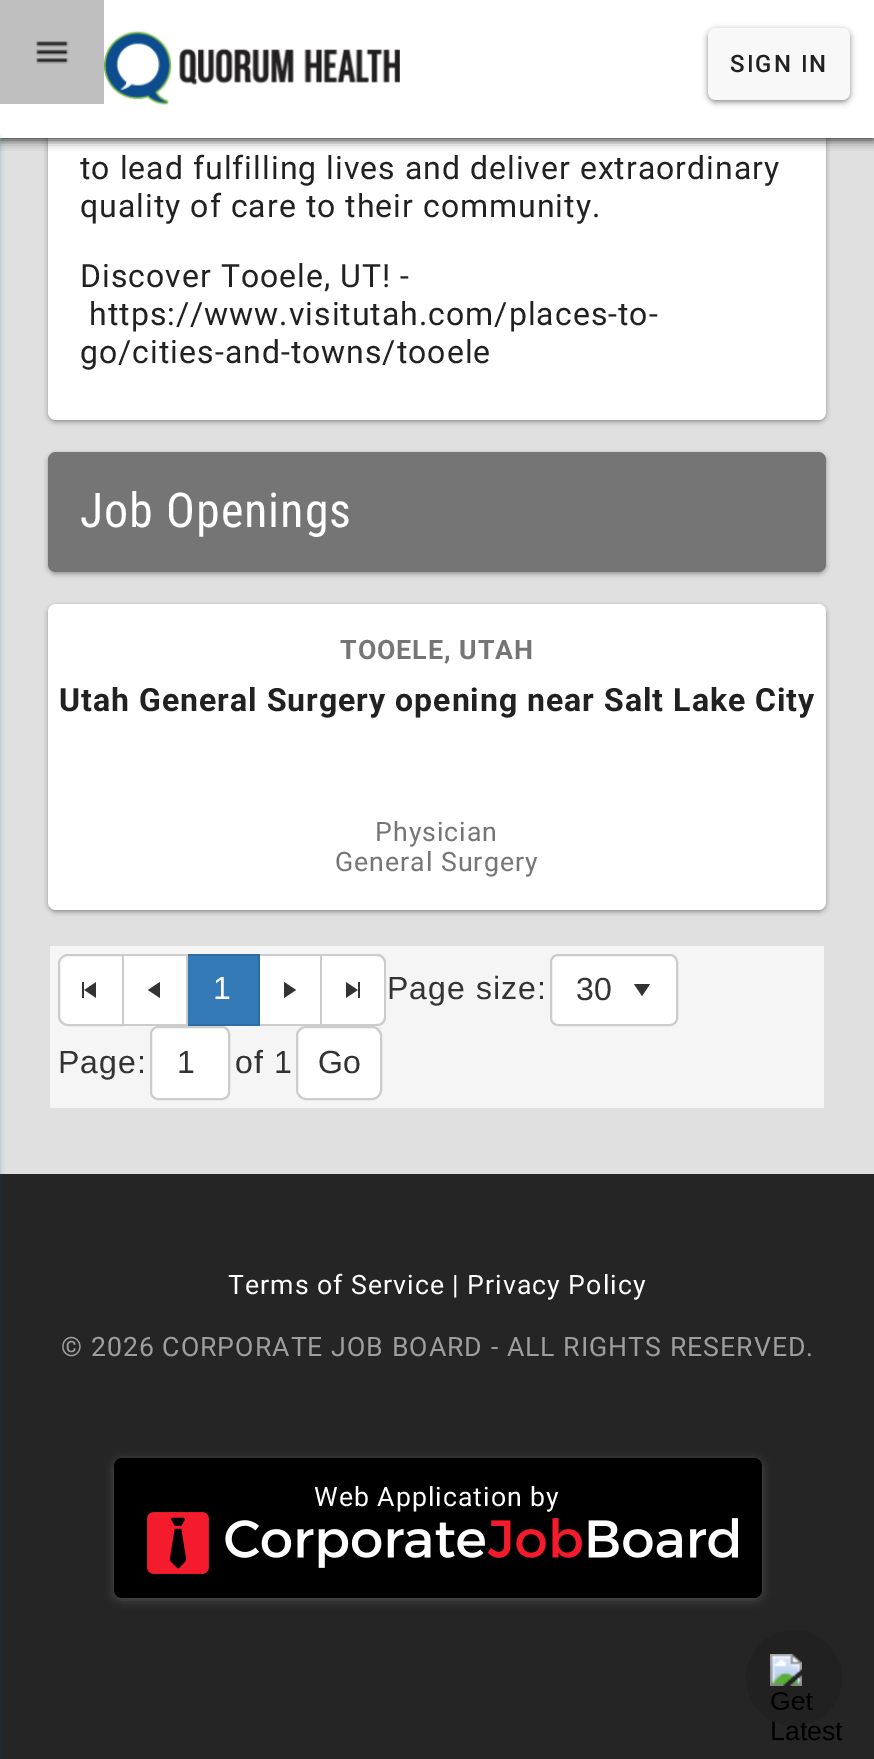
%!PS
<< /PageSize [874 1759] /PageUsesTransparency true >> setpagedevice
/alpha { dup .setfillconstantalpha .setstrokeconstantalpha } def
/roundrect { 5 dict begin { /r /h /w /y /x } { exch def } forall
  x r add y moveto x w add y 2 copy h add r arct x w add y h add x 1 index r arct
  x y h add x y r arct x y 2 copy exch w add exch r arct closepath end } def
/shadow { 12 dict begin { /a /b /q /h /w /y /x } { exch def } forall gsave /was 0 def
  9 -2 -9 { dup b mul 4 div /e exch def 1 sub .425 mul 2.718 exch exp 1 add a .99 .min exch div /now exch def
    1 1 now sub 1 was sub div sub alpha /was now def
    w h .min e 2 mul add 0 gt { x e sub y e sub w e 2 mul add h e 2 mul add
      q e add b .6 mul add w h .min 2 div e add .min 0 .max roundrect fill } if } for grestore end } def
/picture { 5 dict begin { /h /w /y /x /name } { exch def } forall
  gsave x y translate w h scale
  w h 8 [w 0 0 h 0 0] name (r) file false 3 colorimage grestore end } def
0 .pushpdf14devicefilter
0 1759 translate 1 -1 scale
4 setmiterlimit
0.878 setgray
0 0 874 1759 rectfill
0 setgray
48 -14 778 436 8 2 0.24 shadow
48 -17 778 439 8 3 0.12 shadow
1 setgray
48 -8 778 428 8 roundrect fill
0.129 setgray
0 2 874 138 0 5 1 shadow
1 setgray
0 0 874 138 rectfill
0.749 setgray
0 0 104 104 rectfill
(img1.rgb) 36 41 33 23 picture
(img2.rgb) 104 31 296 74 picture
0.529 setgray
708 30 142 72 8 3 1 shadow
0.973 setgray
708 28 142 72 8 roundrect fill
/Roboto-Medium [24 0 0 -24 0 0] selectfont
0.129 setgray
730 72 moveto 2 0 (SIGN IN) ashow
0.145 setgray
0 1174 874 585 rectfill
0 0.4 0.459 setrgbcolor
-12 140 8 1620 0 4 1 shadow
/Roboto-Regular [32 0 0 -32 0 0] selectfont
0.129 setgray
80 179 moveto 1 0 (to lead fulfilling lives and deliver extraordinary) ashow
80 217 moveto 1 0 (quality of care to their community.) ashow
80 287 moveto 1 0 (Discover Tooele, UT! -) ashow
89 325 moveto 1 0 (https://www.visitutah.com/places-to-) ashow
80 363 moveto 1 0 (go/cities-and-towns/tooele) ashow
0 setgray
48 454 778 120 8 2 0.24 shadow
48 454 778 120 8 3 0.12 shadow
0.459 setgray
48 452 778 120 8 roundrect fill
/RobotoCondensed-Regular [48 0 0 -48 0 0] selectfont
1 setgray
80 527 moveto 1 0 (Job Openings) ashow
0 setgray
48 606 778 306 8 2 0.24 shadow
48 606 778 306 8 3 0.12 shadow
1 setgray
48 604 778 306 8 roundrect fill
/Roboto-Bold [26.7 0 0 -26.7 0 0] selectfont
0.459 setgray
340 659 moveto 1 0 (TOOELE, UTAH) ashow
/Roboto-Bold [32 0 0 -32 0 0] selectfont
0.129 setgray
59 711 moveto 1 0 (Utah General Surgery opening near Salt Lake City) ashow
/Roboto-Regular [26.7 0 0 -26.7 0 0] selectfont
0.459 setgray
375 841 moveto 1 0 (Physician) ashow
335 871 moveto 1 0 (General Surgery) ashow
0.961 setgray
50 946 774 162 rectfill
1 setgray
newpath 68 955 moveto 123 955 lineto 123 1025 lineto 68 1025 lineto 63 1025 59 1021 59 1016 curveto 59 964 lineto 59 959 63 955 68 955 curveto closepath gsave fill grestore
0.8 setgray
2 setlinewidth
stroke
(img3.rgb) 82 982 14 16 picture
1 setgray
124 956 62 68 rectfill
0.8 setgray
124 954 64 2 rectfill
186 954 2 72 rectfill
124 1024 64 2 rectfill
0.2 setgray
newpath 148 990 moveto 160 982 lineto 160 998 lineto closepath fill
0.2 0.478 0.718 setrgbcolor
188 956 70 68 rectfill
0.18 0.427 0.643 setrgbcolor
188 954 72 2 rectfill
258 954 2 72 rectfill
188 1024 72 2 rectfill
/LiberationSans-Regular [32 0 0 -32 0 0] selectfont
1 setgray
213 999 moveto 1 0 (1) ashow
260 956 60 68 rectfill
0.8 setgray
260 954 62 2 rectfill
320 954 2 72 rectfill
260 1024 62 2 rectfill
0.2 setgray
newpath 296 990 moveto 284 998 lineto 284 982 lineto closepath fill
1 setgray
newpath 322 956 moveto 376 956 lineto 380.5 956 384 959.5 384 964 curveto 384 1016 lineto 384 1020.5 380.5 1024 376 1024 curveto 322 1024 lineto closepath fill
0.8 setgray
newpath 322 954 moveto 377 954 lineto 382 954 386 958 386 963 curveto 386 1017 lineto 386 1022 382 1026 377 1026 curveto 322 1026 lineto closepath 322 956 moveto 377 956 lineto 381 956 384 959 384 963 curveto 384 1017 lineto 384 1021 381 1024 377 1024 curveto 322 1024 lineto closepath eofill
(img4.rgb) 346 982 14 16 picture
0.2 setgray
387 999 moveto 1 0 (Page size:) ashow
1 setgray
551 955 126 70 7 roundrect gsave fill grestore
0.8 setgray
stroke
0.2 setgray
576 1000 moveto (30) show
newpath 642 996 moveto 634 984 lineto 650 984 lineto closepath fill
58 1073 moveto 1 0 (Page:) ashow
1 setgray
151 1027 78 72 7 roundrect gsave fill grestore
0.8 setgray
stroke
0.2 setgray
177 1073 moveto (1) show
235 1073 moveto 1 0 (of 1) ashow
1 setgray
297 1027 84 72 9 roundrect gsave fill grestore
0.8 setgray
stroke
0.2 setgray
318 1073 moveto (Go) show
/Roboto-Regular [26.7 0 0 -26.7 0 0] selectfont
1 setgray
228 1294 moveto 1 0 (Terms of Service | Privacy Policy) ashow
0.62 setgray
61 1356 moveto 1 0 (© 2026 CORPORATE JOB BOARD - ALL RIGHTS RESERVED.) ashow
0.314 setgray
114 1460 648 140 8 5 1 shadow
0 setgray
114 1458 648 140 8 roundrect fill
1 setgray
314 1506 moveto 1 0 (Web Application by) ashow
(img5.rgb) 147 1512 591 62 picture
0.129 setgray
newpath 794 1678 48 0 360 arc closepath fill
(img6.rgb) 770 1654 43 72 picture
/LiberationSans-Regular [26.7 0 0 -26.7 0 0] selectfont
0 setgray
770 1740 moveto (Latest) show
.poppdf14devicefilter showpage
